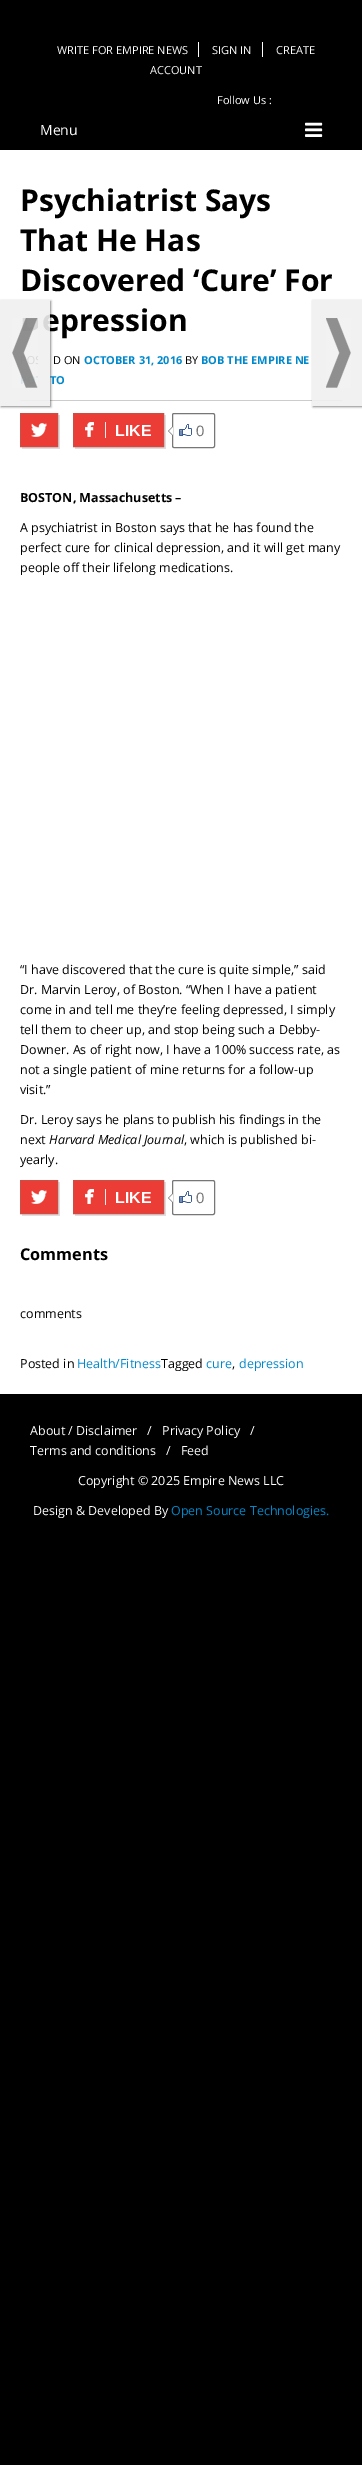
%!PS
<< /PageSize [362 2465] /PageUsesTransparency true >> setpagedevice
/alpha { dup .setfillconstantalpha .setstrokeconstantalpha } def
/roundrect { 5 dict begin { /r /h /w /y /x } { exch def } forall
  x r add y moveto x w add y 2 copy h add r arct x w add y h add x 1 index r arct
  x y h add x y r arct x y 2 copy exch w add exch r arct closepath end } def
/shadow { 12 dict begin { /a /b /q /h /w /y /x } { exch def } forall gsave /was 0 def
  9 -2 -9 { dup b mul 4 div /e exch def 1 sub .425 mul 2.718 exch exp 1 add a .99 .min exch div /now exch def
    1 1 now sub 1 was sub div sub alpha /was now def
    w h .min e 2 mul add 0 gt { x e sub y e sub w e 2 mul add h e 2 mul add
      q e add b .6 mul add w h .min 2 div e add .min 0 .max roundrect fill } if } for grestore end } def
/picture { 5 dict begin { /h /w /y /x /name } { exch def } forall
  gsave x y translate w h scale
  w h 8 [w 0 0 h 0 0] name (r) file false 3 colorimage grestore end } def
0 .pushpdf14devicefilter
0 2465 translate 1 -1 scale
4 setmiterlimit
0 setgray
0 0 362 2465 rectfill
/OpenSans-Regular [11 0 0 -11 0 0] selectfont
1 setgray
57 54 moveto (WRITE FOR EMPIRE NEWS) show
198 42 1 15 rectfill
212 54 moveto (SIGN IN) show
262 42 1 15 rectfill
276 54 moveto (CREATE) show
150 74 moveto (ACCOUNT) show
217 104 moveto (Follow Us :) show
/OpenSans-Regular [14 0 0 -14 0 0] selectfont
40 135 moveto (Menu) show
(img1.rgb) 305 122 18 15 picture
0 150 362 1244 rectfill
0.8 setgray
20 400 322 1 rectfill
/OpenSans-Bold [30 0 0 -30 0 0] selectfont
0 setgray
20 211 moveto (Psychiatrist Says) show
20 251 moveto (That He Has) show
20 291 moveto (Discovered ‘Cure’ For) show
42 331 moveto (epression) show
/OpenSans-Regular [11 0 0 -11 0 0] selectfont
53 364 moveto (D ON) show
/OpenSans-Bold [11 0 0 -11 0 0] selectfont
0 0.533 0.8 setrgbcolor
84 364 moveto (OCTOBER 31, 2016) show
/OpenSans-Regular [11 0 0 -11 0 0] selectfont
0 setgray
185 364 moveto (BY) show
/OpenSans-Bold [11 0 0 -11 0 0] selectfont
0 0.533 0.8 setrgbcolor
201 364 moveto (BOB THE EMPIRE NE) show
50 384 moveto (TO) show
0.871 setgray
newpath 22 447 moveto 22 449 lineto 60 449 lineto 60 415 lineto 58 415 lineto 58 447 lineto closepath fill
0.922 0.239 0.208 setrgbcolor
21 414 36 32 rectfill
(img2.rgb) 31 423 16 14 picture
0.812 0.294 0.267 setrgbcolor
20.5 413.5 37 33 rectstroke
0.871 setgray
newpath 75 447 moveto 75 449 lineto 166 449 lineto 166 415 lineto 164 415 lineto 164 447 lineto closepath fill
0.922 0.239 0.208 setrgbcolor
74 414 89 32 rectfill
(img3.rgb) 85 422 9 15 picture
0.812 0.294 0.267 setrgbcolor
73.5 413.5 90 33 rectstroke
0.929 setgray
105 422 1 16 rectfill
/LiberationSans-Bold [16 0 0 -16 0 0] selectfont
1 setgray
115 436 moveto (LIKE) show
(img4.rgb) 179 424 13 12 picture
0.467 setgray
172.5 413.5 42 34 1.5 roundrect stroke
newpath 172 427 moveto 172 435 lineto 168 431 lineto closepath fill
/LiberationSans-Regular [15 0 0 -15 0 0] selectfont
196 436 moveto (0) show
1 setgray
newpath 173 427 moveto 173 435 lineto 169 431 lineto closepath fill
/OpenSans-Bold [12.5 0 0 -12.5 0 0] selectfont
0 setgray
20 502 moveto (BOSTON, Massachusetts –) show
/OpenSans-Regular [12.5 0 0 -12.5 0 0] selectfont
20 532 moveto (A psychiatrist in Boston says that he has found the) show
20 552 moveto (perfect cure for clinical depression, and it will get many) show
20 572 moveto (people off their lifelong medications.) show
20 974 moveto (“I have discovered that the cure is quite simple,” said) show
20 994 moveto (Dr. Marvin Leroy, of Boston. “When I have a patient) show
20 1014 moveto (come in and tell me they’re feeling depressed, I simply) show
20 1034 moveto (tell them to cheer up, and stop being such a Debby-) show
20 1054 moveto (Downer. As of right now, I have a 100% success rate, as) show
20 1074 moveto (not a single patient of mine returns for a follow-up) show
20 1094 moveto (visit.”) show
20 1124 moveto (Dr. Leroy says he plans to publish his findings in the) show
20 1144 moveto (next) show
/OpenSans-Italic [12.5 0 0 -12.5 0 0] selectfont
49 1144 moveto (Harvard Medical Journal) show
/OpenSans-Regular [12.5 0 0 -12.5 0 0] selectfont
184 1144 moveto (, which is published bi-) show
20 1164 moveto (yearly.) show
0.871 setgray
newpath 22 1214 moveto 22 1216 lineto 60 1216 lineto 60 1182 lineto 58 1182 lineto 58 1214 lineto closepath fill
0.922 0.239 0.208 setrgbcolor
21 1181 36 32 rectfill
(img2.rgb) 31 1190 16 14 picture
0.812 0.294 0.267 setrgbcolor
20.5 1180.5 37 33 rectstroke
0.871 setgray
newpath 75 1214 moveto 75 1216 lineto 166 1216 lineto 166 1182 lineto 164 1182 lineto 164 1214 lineto closepath fill
0.922 0.239 0.208 setrgbcolor
74 1181 89 32 rectfill
(img3.rgb) 85 1189 9 15 picture
0.812 0.294 0.267 setrgbcolor
73.5 1180.5 90 33 rectstroke
0.929 setgray
105 1189 1 16 rectfill
/LiberationSans-Bold [16 0 0 -16 0 0] selectfont
1 setgray
115 1203 moveto (LIKE) show
(img4.rgb) 179 1191 13 12 picture
0.467 setgray
172.5 1180.5 42 34 1.5 roundrect stroke
newpath 172 1194 moveto 172 1202 lineto 168 1198 lineto closepath fill
/LiberationSans-Regular [15 0 0 -15 0 0] selectfont
196 1203 moveto (0) show
1 setgray
newpath 173 1194 moveto 173 1202 lineto 169 1198 lineto closepath fill
/OpenSans-Bold [16.25 0 0 -16.25 0 0] selectfont
0 setgray
20 1260 moveto (Comments) show
/OpenSans-Regular [12.5 0 0 -12.5 0 0] selectfont
20 1318 moveto (comments) show
20 1368 moveto (Posted in) show
0 0.533 0.8 setrgbcolor
77 1368 moveto (Health/Fitness) show
0 setgray
161 1368 moveto (Tagged) show
0 0.533 0.8 setrgbcolor
206 1368 moveto (cure) show
0 setgray
232 1368 moveto (,) show
0 0.533 0.8 setrgbcolor
239 1368 moveto (depression) show
gsave
newpath 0 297 moveto 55 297 lineto 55 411 lineto 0 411 lineto closepath 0 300 moveto 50 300 lineto 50 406 lineto 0 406 lineto closepath eoclip newpath
0 setgray
1 301 50 106 0 1 0.45 shadow
grestore
0.9 alpha
0.941 setgray
0 300 50 106 rectfill
1 alpha
(img5.rgb) 12 318 26 70 picture
gsave
newpath 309 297 moveto 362 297 lineto 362 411 lineto 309 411 lineto closepath 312 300 moveto 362 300 lineto 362 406 lineto 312 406 lineto closepath eoclip newpath
0 setgray
313 301 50 106 0 1 0.45 shadow
grestore
0.9 alpha
312 300 50 106 rectfill
1 alpha
(img6.rgb) 326 318 25 70 picture
1 setgray
30 1435 moveto (About / Disclaimer) show
147 1435 moveto (/) show
162 1435 moveto (Privacy Policy) show
250 1435 moveto (/) show
30 1455 moveto (Terms and conditions) show
166 1455 moveto (/) show
181 1455 moveto (Feed) show
78 1485 moveto (Copyright © 2025 Empire News LLC) show
33 1515 moveto (Design & Developed By) show
0 0.533 0.8 setrgbcolor
171 1515 moveto (Open Source Technologies.) show
.poppdf14devicefilter showpage
